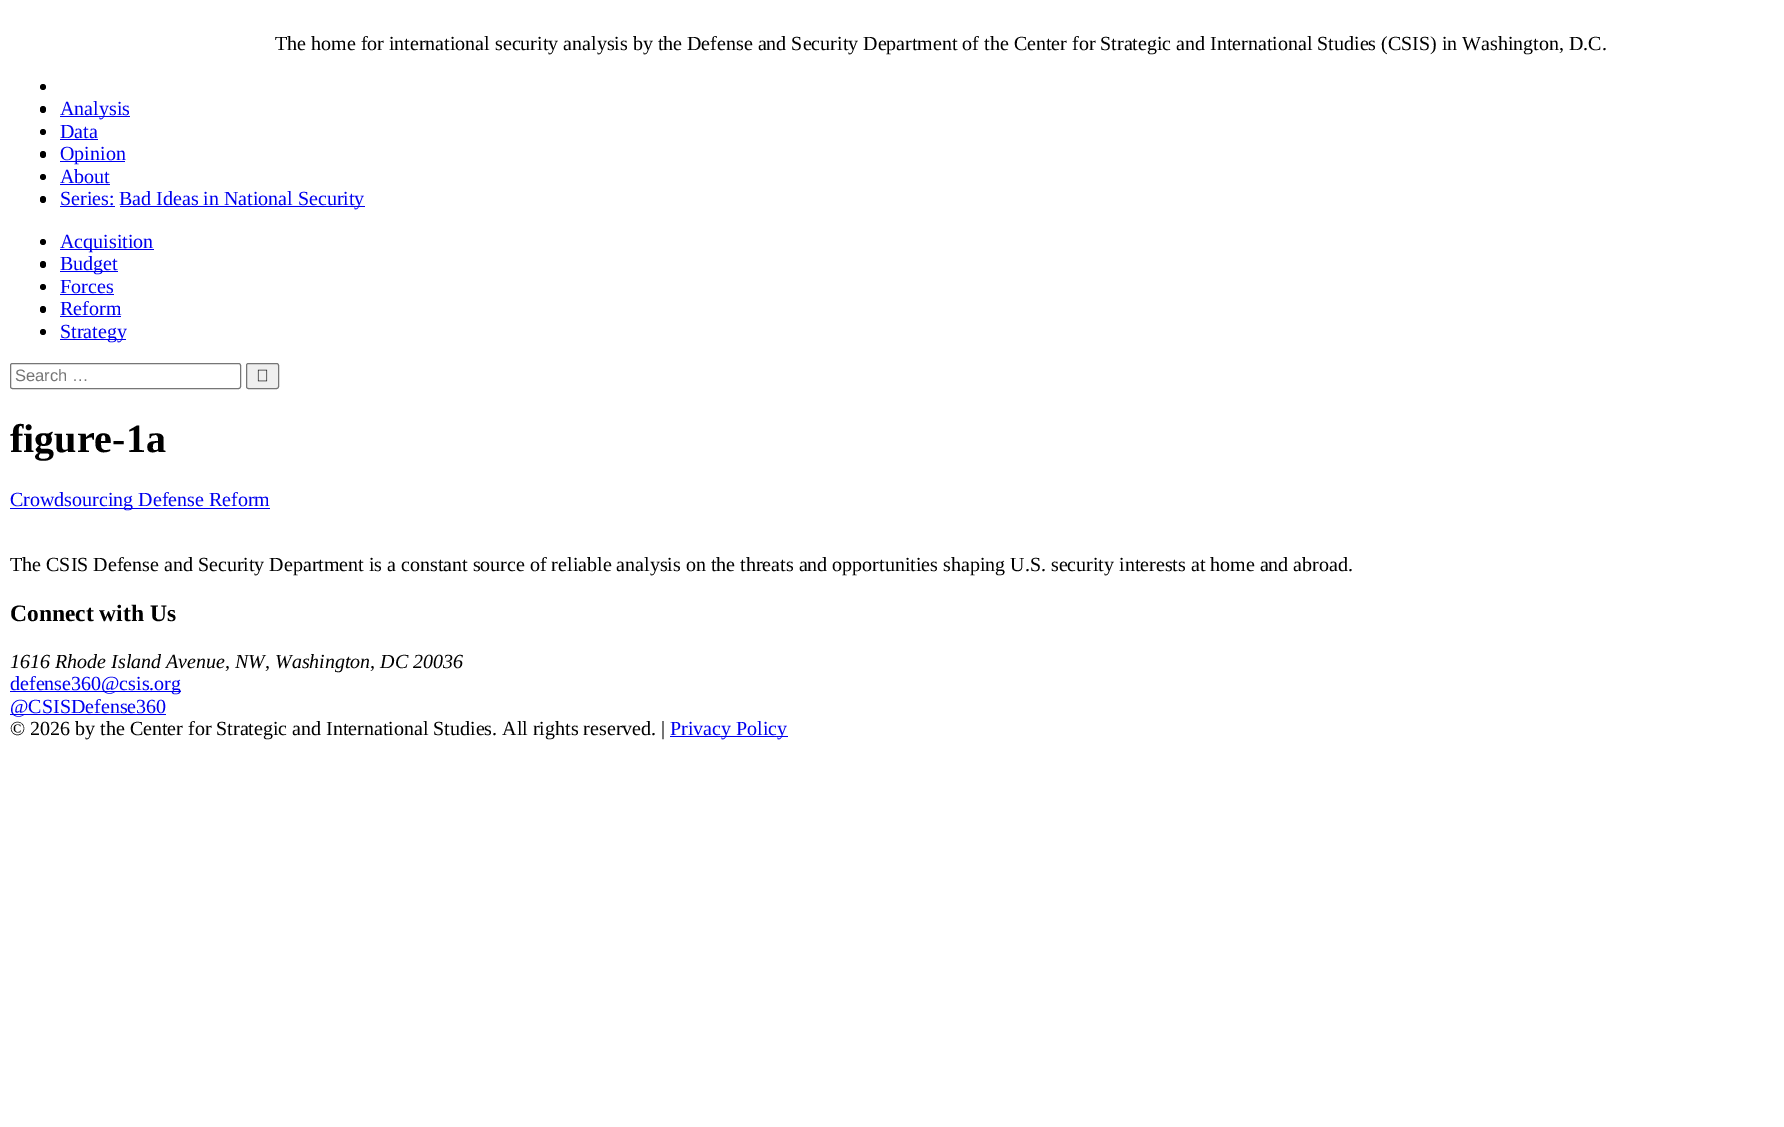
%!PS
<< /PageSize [1784 1127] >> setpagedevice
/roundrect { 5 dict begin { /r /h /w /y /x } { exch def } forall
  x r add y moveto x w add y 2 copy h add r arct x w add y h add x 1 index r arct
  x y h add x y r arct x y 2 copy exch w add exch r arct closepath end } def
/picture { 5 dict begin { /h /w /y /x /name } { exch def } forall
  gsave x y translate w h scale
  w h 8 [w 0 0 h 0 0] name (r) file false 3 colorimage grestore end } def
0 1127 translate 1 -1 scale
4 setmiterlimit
1 setgray
0 0 1784 1127 rectfill
/LiberationSerif-Regular [20 0 0 -20 0 0] selectfont
0 setgray
275 50 moveto (The home for international security analysis by the Defense and Security Department of the Center for Strategic and International Studies \(CSIS\) in Washington, D.C.) show
newpath 43 87 3 0 360 arc closepath fill
40 106 6 7 3 roundrect fill
0 0 0.933 setrgbcolor
60 116 70 1 rectfill
60 115 moveto (Analysis) show
0 setgray
newpath 43 132 3 0 360 arc closepath fill
0 0 0.933 setrgbcolor
60 138 moveto (Data) show
60 139 38 1 rectfill
0 setgray
40 151 6 7 3 roundrect fill
0 0 0.933 setrgbcolor
60 161 65 1 rectfill
60 160 moveto (Opinion) show
0 setgray
newpath 43 177 3 0 360 arc closepath fill
0 0 0.933 setrgbcolor
60 183 moveto (About) show
60 184 50 1 rectfill
0 setgray
40 196 6 7 3 roundrect fill
0 0 0.933 setrgbcolor
60 205 moveto (Series:) show
60 206 55 1 rectfill
120 206 245 1 rectfill
119 205 moveto (Bad Ideas in National Security) show
0 setgray
newpath 43 242 3 0 360 arc closepath fill
0 0 0.933 setrgbcolor
60 249 94 1 rectfill
60 248 moveto (Acquisition) show
0 setgray
40 261 6 7 3 roundrect fill
0 0 0.933 setrgbcolor
60 271 58 1 rectfill
60 270 moveto (Budget) show
0 setgray
newpath 43 287 3 0 360 arc closepath fill
0 0 0.933 setrgbcolor
60 293 moveto (Forces) show
60 294 54 1 rectfill
0 setgray
40 306 6 7 3 roundrect fill
0 0 0.933 setrgbcolor
60 315 moveto (Reform) show
60 316 61 1 rectfill
0 setgray
newpath 43 332 3 0 360 arc closepath fill
0 0 0.933 setrgbcolor
60 339 66 1 rectfill
60 338 moveto (Strategy) show
0.463 setgray
10.5 363.5 230 25 2 roundrect stroke
/LiberationSans-Regular [16.5 0 0 -16.5 0 0] selectfont
0.459 setgray
15 381 moveto (Search …) show
0.937 setgray
246.5 363.5 32 25 2 roundrect gsave fill grestore
0.463 setgray
stroke
(img1.rgb) 257 369 11 13 picture
/LiberationSerif-Bold [40 0 0 -40 0 0] selectfont
0 setgray
10 452 moveto (figure-1a) show
0 0 0.933 setrgbcolor
10 508 260 1 rectfill
/LiberationSerif-Regular [20 0 0 -20 0 0] selectfont
10 506 moveto (Crowdsourcing Defense Reform) show
0 setgray
10 571 moveto (The CSIS Defense and Security Department is a constant source of reliable analysis on the threats and opportunities shaping U.S. security interests at home and abroad.) show
/LiberationSerif-Bold [23.5 0 0 -23.5 0 0] selectfont
10 621 moveto (Connect with Us) show
/LiberationSerif-Italic [20 0 0 -20 0 0] selectfont
10 668 moveto (1616 Rhode Island Avenue, NW, Washington, DC 20036) show
0 0 0.933 setrgbcolor
10 691 171 1 rectfill
/LiberationSerif-Regular [20 0 0 -20 0 0] selectfont
10 690 moveto (defense360@csis.org) show
10 714 156 1 rectfill
10 713 moveto (@CSISDefense360) show
0 setgray
10 735 moveto (© 2026 by the Center for Strategic and International Studies. All rights reserved. |) show
0 0 0.933 setrgbcolor
670 736 118 1 rectfill
670 735 moveto (Privacy Policy) show
showpage
